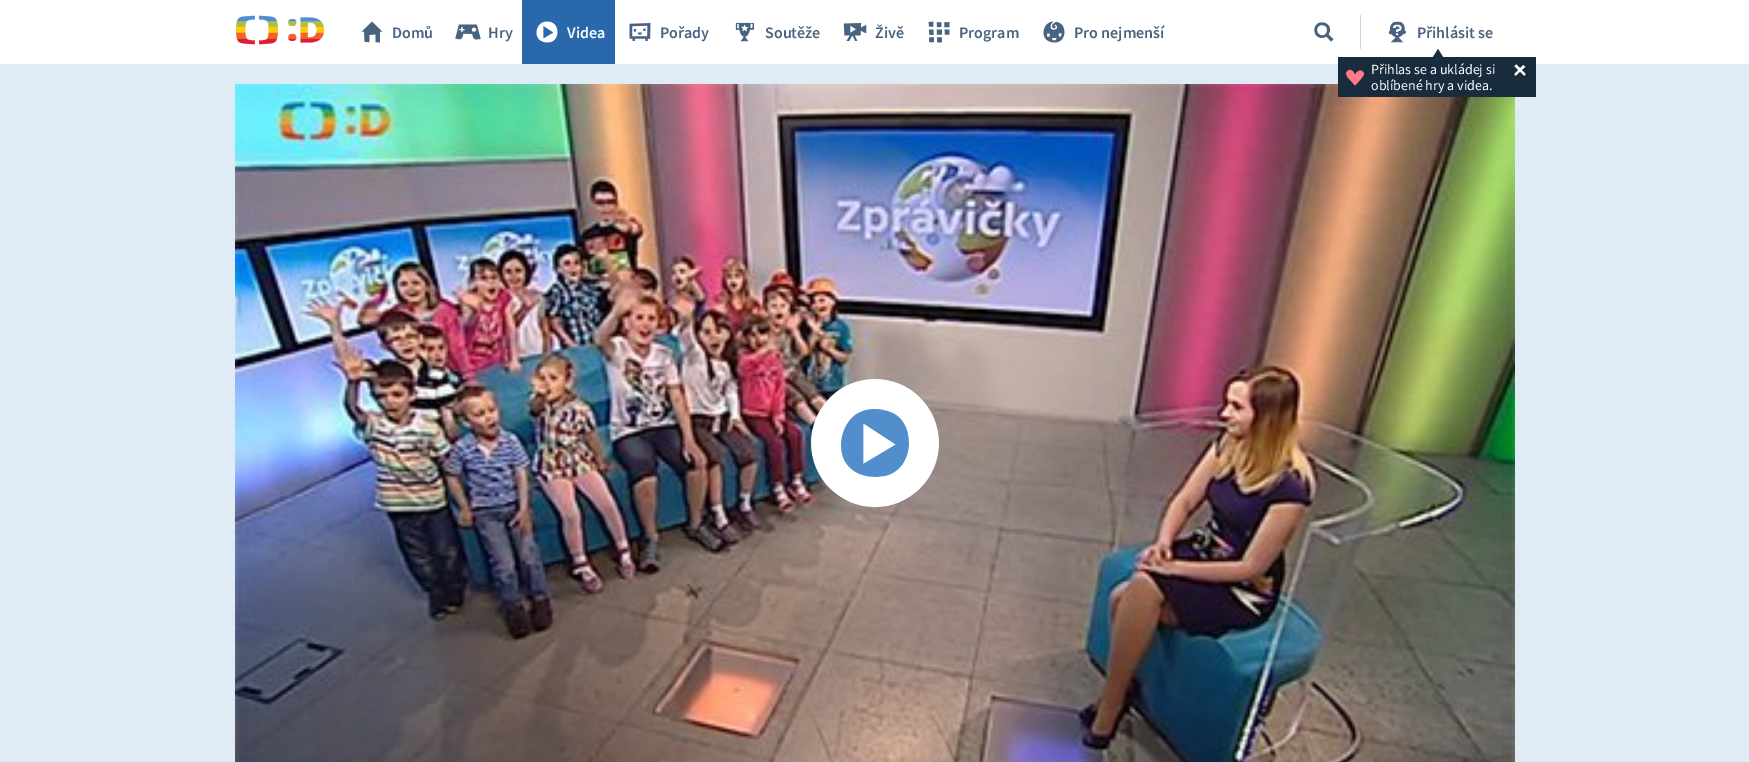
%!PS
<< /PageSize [1749 762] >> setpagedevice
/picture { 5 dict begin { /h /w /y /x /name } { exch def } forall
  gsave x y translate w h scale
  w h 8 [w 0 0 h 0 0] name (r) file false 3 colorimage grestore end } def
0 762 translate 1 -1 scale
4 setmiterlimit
0.878 0.925 0.961 setrgbcolor
0 0 1749 762 rectfill
1 setgray
0 0 1749 64 rectfill
(img1.rgb) 235 15 90 30 picture
(img2.rgb) 361 21 22 22 picture
/SourceSansPro-SemiBold [16 0 0 -16 0 0] selectfont
0.282 0.388 0.502 setrgbcolor
392 38 moveto (Domů) show
(img3.rgb) 455 24 26 16 picture
488 38 moveto (Hry) show
0.161 0.412 0.671 setrgbcolor
522 0 93 64 rectfill
(img4.rgb) 536 21 22 22 picture
1 setgray
567 38 moveto (Videa) show
(img5.rgb) 629 23 22 18 picture
0.282 0.388 0.502 setrgbcolor
660 38 moveto (Pořady) show
(img6.rgb) 735 22 19 20 picture
765 38 moveto (Soutěže) show
(img7.rgb) 843 23 24 18 picture
875 38 moveto (Živě) show
(img8.rgb) 928 21 22 22 picture
959 38 moveto (Program) show
(img9.rgb) 1043 21 22 22 picture
1074 38 moveto (Pro nejmenší) show
(img10.rgb) 1314 22 20 20 picture
0.765 0.843 0.902 setrgbcolor
1360 15 1 34 rectfill
(img11.rgb) 1388 21 18 22 picture
0.282 0.388 0.502 setrgbcolor
1417 38 moveto (Přihlásit se) show
(img14.rgb) 235 84 1280 678 picture
0.098 0.173 0.239 setrgbcolor
1338 57 198 40 rectfill
newpath 1443 57 moveto 1433 57 lineto 1438 49 lineto closepath fill
(img12.rgb) 1346 69 19 17 picture
/SourceSansPro-Regular [14 0 0 -14 0 0] selectfont
1 setgray
1371 74 moveto (Přihlas se a ukládej si) show
1371 90 moveto (oblíbené hry a videa.) show
(img13.rgb) 1514 64 12 12 picture
(img15.rgb) 811 379 128 128 picture
showpage
